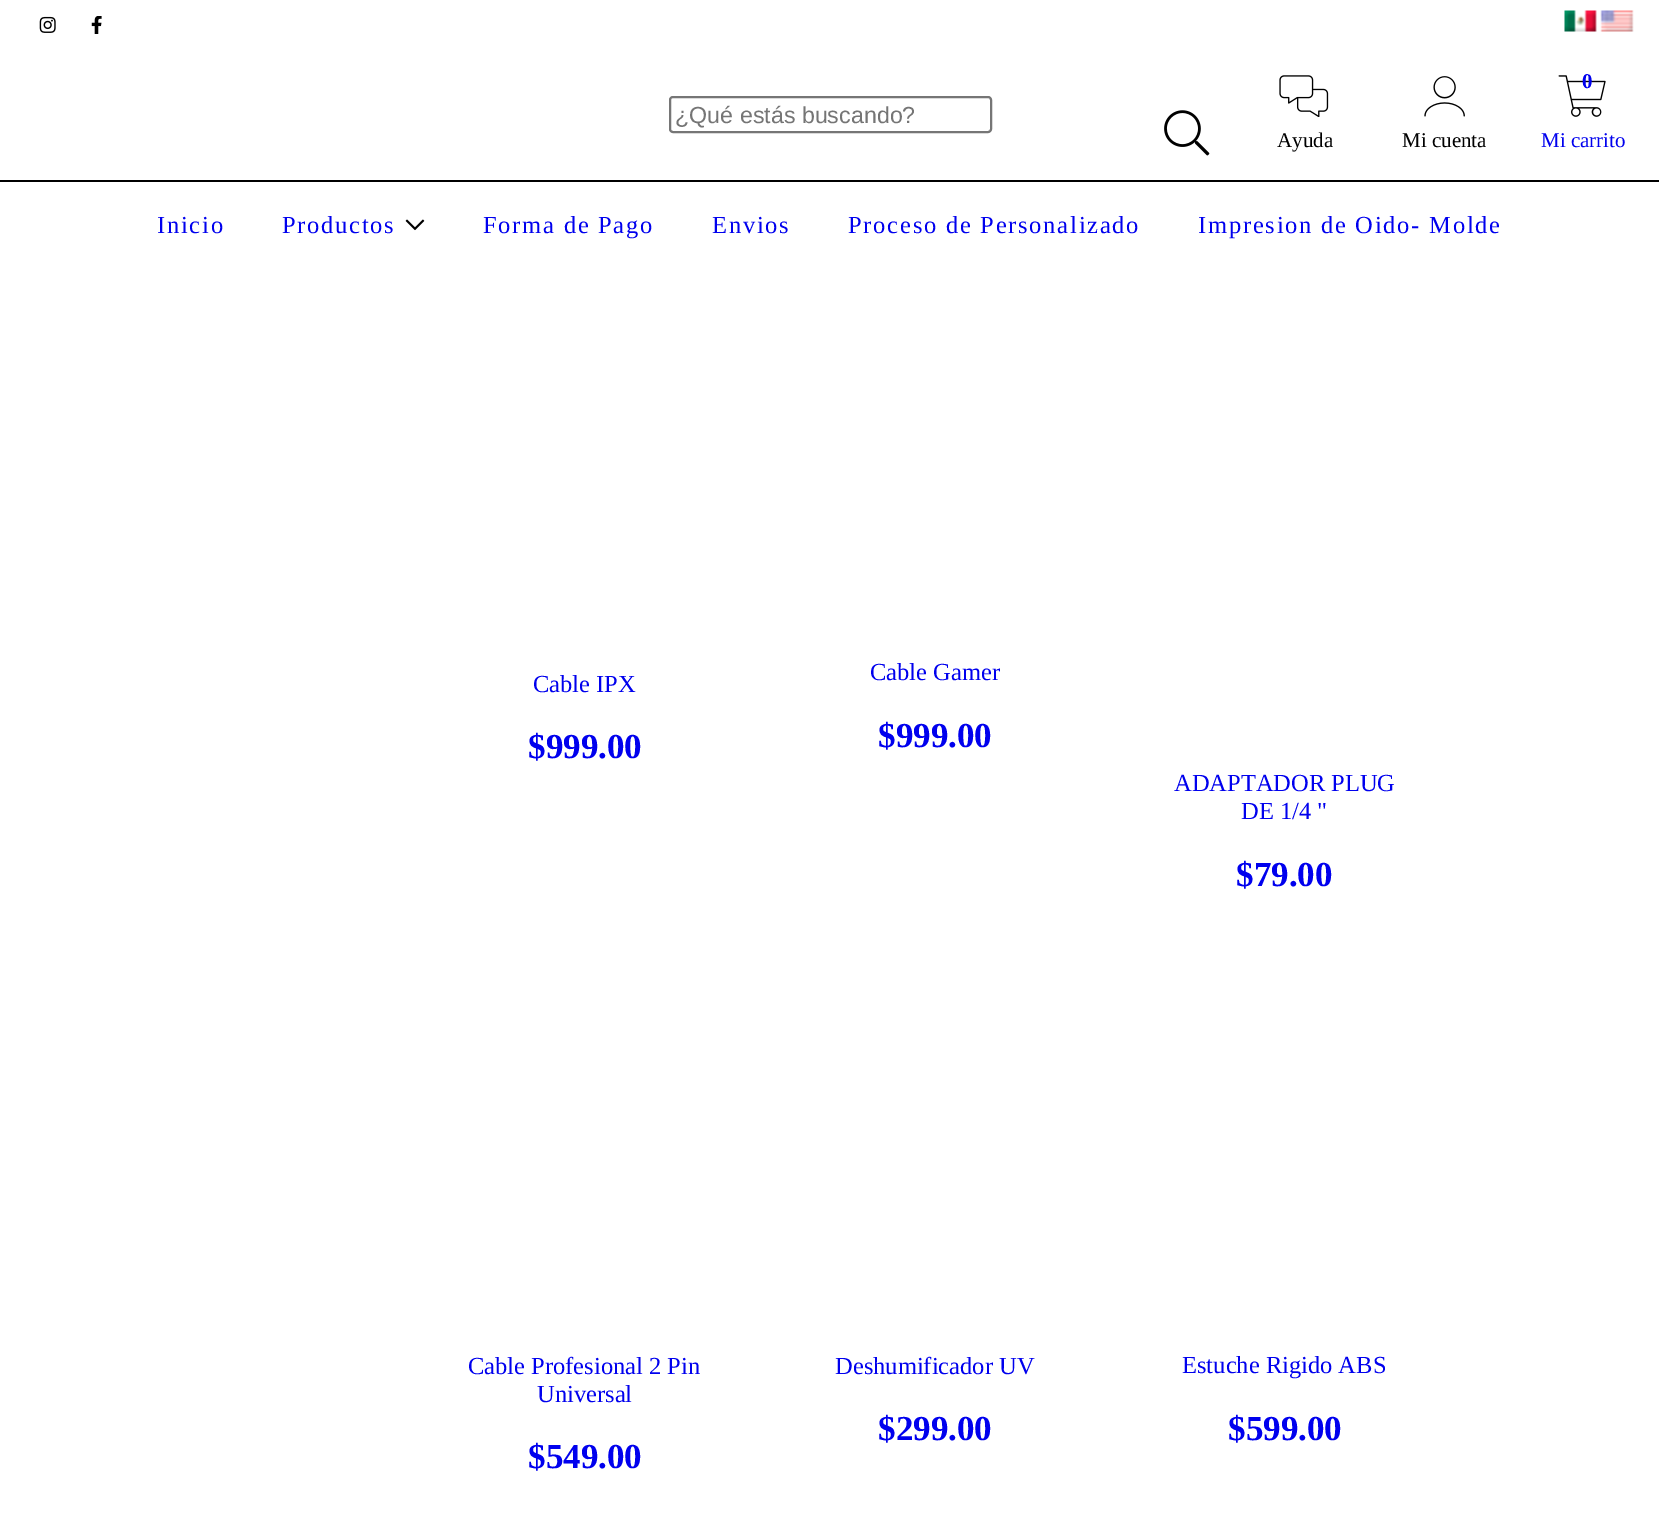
%!PS
<< /PageSize [1659 1526] >> setpagedevice
/roundrect { 5 dict begin { /r /h /w /y /x } { exch def } forall
  x r add y moveto x w add y 2 copy h add r arct x w add y h add x 1 index r arct
  x y h add x y r arct x y 2 copy exch w add exch r arct closepath end } def
/picture { 5 dict begin { /h /w /y /x /name } { exch def } forall
  gsave x y translate w h scale
  w h 8 [w 0 0 h 0 0] name (r) file false 3 colorimage grestore end } def
0 1526 translate 1 -1 scale
4 setmiterlimit
1 setgray
0 0 1659 1526 rectfill
(img1.rgb) 39 16 17 17 picture
(img2.rgb) 91 16 11 18 picture
(img3.rgb) 1564 10 33 22 picture
(img4.rgb) 1600 10 34 22 picture
0.463 setgray
2 setlinewidth
670 97 321 35 3 roundrect stroke
/LiberationSans-Regular [23.25 0 0 -23.25 0 0] selectfont
0.459 setgray
675 123 moveto (¿Qué estás buscando?) show
(img5.rgb) 1164 110 46 46 picture
(img6.rgb) 1279 75 50 42 picture
/LiberationSerif-Regular [21 0 0 -21 0 0] selectfont
0 setgray
1277 147 moveto (Ayuda) show
(img7.rgb) 1424 76 41 41 picture
1402 147 moveto (Mi cuenta) show
(img8.rgb) 1558 75 48 42 picture
/LiberationSerif-Bold [21 0 0 -21 0 0] selectfont
0 0 0.933 setrgbcolor
1582 88 moveto (0) show
/LiberationSerif-Regular [21 0 0 -21 0 0] selectfont
1541 147 moveto (Mi carrito) show
0 setgray
0 180 1659 2 rectfill
/LiberationSerif-Regular [24.5 0 0 -24.5 0 0] selectfont
0 0 0.933 setrgbcolor
157 233 moveto 1.75 0 (Inicio) ashow
282 233 moveto 1.75 0 (Productos) ashow
(img9.rgb) 405 219 20 12 picture
483 233 moveto 1.75 0 (Forma de Pago) ashow
712 233 moveto 1.75 0 (Envios) ashow
848 233 moveto 1.75 0 (Proceso de Personalizado) ashow
1198 233 moveto 1.75 0 (Impresion de Oido- Molde) ashow
533 692 moveto (Cable IPX) show
/LiberationSerif-Bold [35 0 0 -35 0 0] selectfont
528 758 moveto ($999.00) show
/LiberationSerif-Regular [24.5 0 0 -24.5 0 0] selectfont
870 680 moveto (Cable Gamer) show
/LiberationSerif-Bold [35 0 0 -35 0 0] selectfont
878 747 moveto ($999.00) show
/LiberationSerif-Regular [24.5 0 0 -24.5 0 0] selectfont
1174 791 moveto (ADAPTADOR PLUG) show
1241 819 moveto (DE 1/4 ") show
/LiberationSerif-Bold [35 0 0 -35 0 0] selectfont
1236 886 moveto ($79.00) show
/LiberationSerif-Regular [24.5 0 0 -24.5 0 0] selectfont
468 1374 moveto (Cable Profesional 2 Pin) show
537 1402 moveto (Universal) show
/LiberationSerif-Bold [35 0 0 -35 0 0] selectfont
528 1468 moveto ($549.00) show
/LiberationSerif-Regular [24.5 0 0 -24.5 0 0] selectfont
835 1374 moveto (Deshumificador UV) show
/LiberationSerif-Bold [35 0 0 -35 0 0] selectfont
878 1440 moveto ($299.00) show
/LiberationSerif-Regular [24.5 0 0 -24.5 0 0] selectfont
1182 1373 moveto (Estuche Rigido ABS) show
/LiberationSerif-Bold [35 0 0 -35 0 0] selectfont
1228 1440 moveto ($599.00) show
showpage
